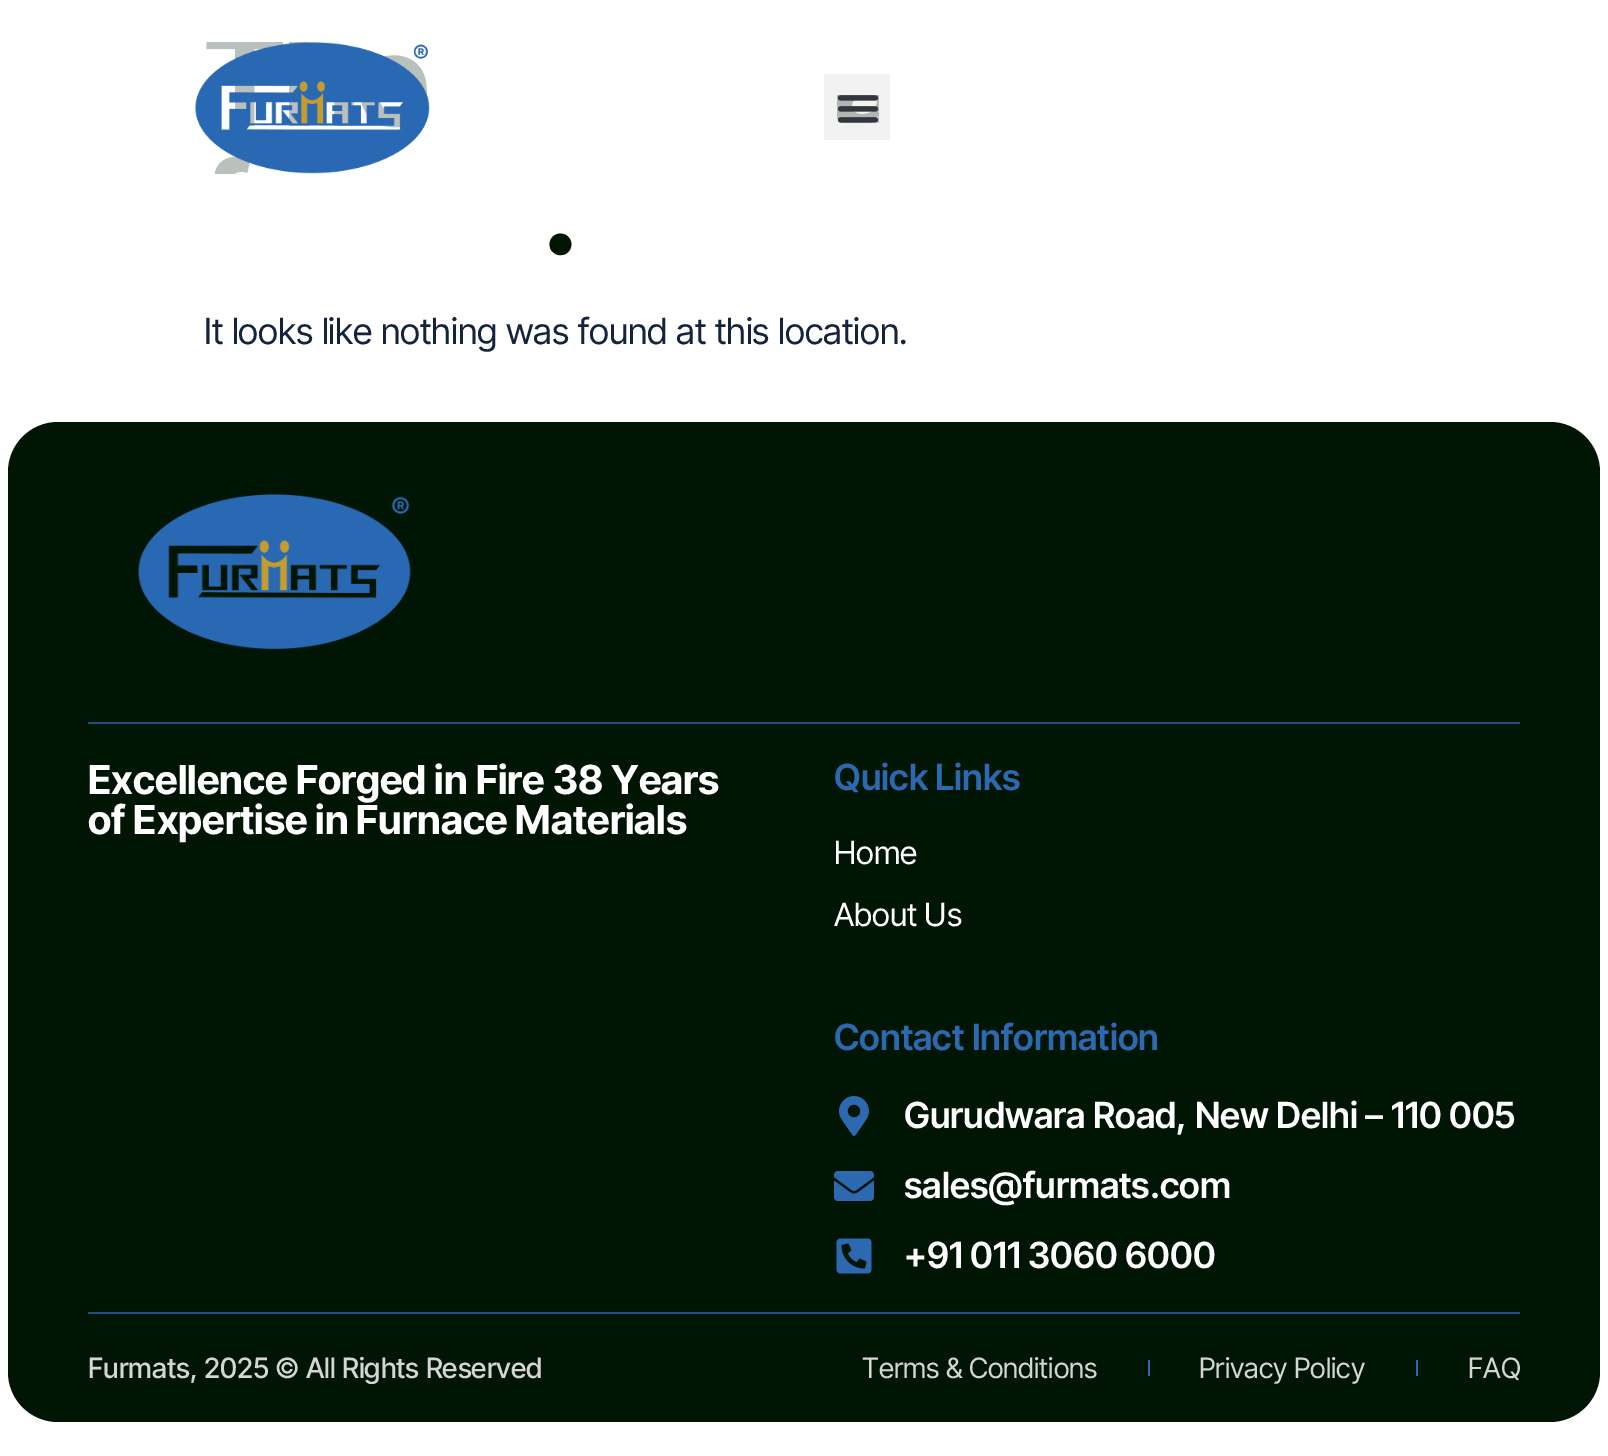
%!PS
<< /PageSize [1608 1456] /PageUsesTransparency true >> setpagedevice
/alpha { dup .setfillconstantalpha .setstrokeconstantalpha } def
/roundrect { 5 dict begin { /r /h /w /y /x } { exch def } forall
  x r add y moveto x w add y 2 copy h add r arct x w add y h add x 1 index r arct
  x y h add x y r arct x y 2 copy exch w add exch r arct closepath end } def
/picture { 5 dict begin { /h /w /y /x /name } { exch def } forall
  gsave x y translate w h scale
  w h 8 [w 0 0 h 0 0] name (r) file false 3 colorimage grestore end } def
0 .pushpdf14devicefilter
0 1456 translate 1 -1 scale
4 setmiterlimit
1 setgray
0 0 1608 1456 rectfill
(img1.rgb) 195 42 235 132 picture
0.05 alpha
0 setgray
824 74 66 66 rectfill
1 alpha
(img2.rgb) 837 95 42 28 picture
/InterTight-Bold [128 0 0 -128 0 0] selectfont
0.004 0.082 0.02 setrgbcolor
541 254 moveto -2 0 (.) ashow
/InterTight-Regular [36 0 0 -36 0 0] selectfont
0.082 0.141 0.235 setrgbcolor
204 344 moveto (It looks like nothing was found at this location.) show
0.004 0.082 0.02 setrgbcolor
8 422 1592 1000 50 roundrect fill
0.133 0.298 0.51 setrgbcolor
88 722 1432 2 rectfill
(img3.rgb) 138 494 273 156 picture
88 1312 1432 2 rectfill
/InterTight-Bold [40 0 0 -40 0 0] selectfont
1 setgray
88 794 moveto (Excellence Forged in Fire 38 Years) show
88 834 moveto (of Expertise in Furnace Materials) show
/InterTight-SemiBold [36 0 0 -36 0 0] selectfont
0.176 0.412 0.694 setrgbcolor
834 790 moveto (Quick Links) show
/InterTight-Regular [32 0 0 -32 0 0] selectfont
1 setgray
834 864 moveto (Home) show
834 926 moveto (About Us) show
/InterTight-SemiBold [36 0 0 -36 0 0] selectfont
0.176 0.412 0.694 setrgbcolor
834 1050 moveto (Contact Information) show
(img4.rgb) 839 1096 30 40 picture
1 setgray
904 1128 moveto (Gurudwara Road, New Delhi – 110 005) show
(img5.rgb) 834 1171 40 30 picture
904 1198 moveto (sales@furmats.com) show
(img6.rgb) 836 1238 36 36 picture
904 1268 moveto (+91 011 3060 6000) show
/InterTight-Medium [28 0 0 -28 0 0] selectfont
0.835 setgray
88 1378 moveto (Furmats, 2025 © All Rights Reserved) show
/InterTight-Regular [28 0 0 -28 0 0] selectfont
862 1378 moveto (Terms & Conditions) show
0.176 0.412 0.694 setrgbcolor
1148 1360 2 16 rectfill
0.835 setgray
1199 1378 moveto (Privacy Policy) show
0.176 0.412 0.694 setrgbcolor
1416 1360 2 16 rectfill
0.835 setgray
1468 1378 moveto (FAQ) show
.poppdf14devicefilter showpage
